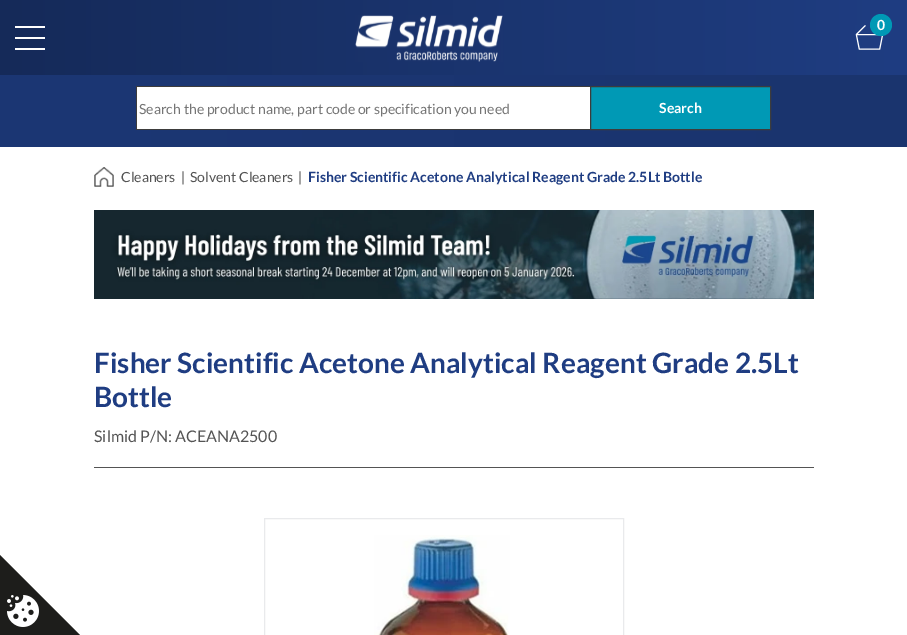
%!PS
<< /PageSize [907 635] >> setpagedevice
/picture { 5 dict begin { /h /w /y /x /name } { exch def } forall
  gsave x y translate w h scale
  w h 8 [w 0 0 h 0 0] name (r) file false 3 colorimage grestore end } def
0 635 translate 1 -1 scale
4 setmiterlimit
1 setgray
0 0 907 635 rectfill
gsave newpath 0 0 moveto 907 0 lineto 907 75 lineto 0 75 lineto closepath clip newpath
<< /ShadingType 2 /ColorSpace /DeviceRGB /Coords [0 38 907 37] /Extend [true true] /Function << /FunctionType 2 /Domain [0 1] /C0 [0.082 0.165 0.349] /C1 [0.122 0.239 0.51] /N 1 >> >> shfill grestore
15 26 30 2 rectfill
15 37 30 2 rectfill
15 48 30 2 rectfill
(img1.rgb) 355 15 148 47 picture
(img2.rgb) 855 25 29 25 picture
0 0.6 0.71 setrgbcolor
newpath 881 25 11 0 360 arc closepath fill
/Lato-Bold [14 0 0 -14 0 0] selectfont
1 setgray
877 30 moveto (0) show
gsave newpath 0 75 moveto 907 75 lineto 907 147 lineto 0 147 lineto closepath clip newpath
<< /ShadingType 2 /ColorSpace /DeviceRGB /Coords [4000 111 -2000 111] /Extend [true true] /Function << /FunctionType 2 /Domain [0 1] /C0 [0.082 0.165 0.349] /C1 [0.122 0.239 0.51] /N 1 >> >> shfill grestore
137 87 453 42 rectfill
0.239 0.235 0.235 setrgbcolor
136 86 454 1 rectfill
136 129 454 1 rectfill
136 86 1 44 rectfill
/Lato-Regular [14 0 0 -14 0 0] selectfont
0.459 setgray
139 114 moveto (Search the product name, part code or specification you need) show
0 0.6 0.71 setrgbcolor
newpath 590.5 86.5 moveto 770.5 86.5 lineto 770.5 129.5 lineto 590.5 129.5 lineto closepath gsave fill grestore
0.239 0.235 0.235 setrgbcolor
stroke
/Lato-Bold [14 0 0 -14 0 0] selectfont
1 setgray
659 113 moveto (Search) show
(img3.rgb) 94 167 20 20 picture
/Lato-Regular [14 0 0 -14 0 0] selectfont
0.329 setgray
121 182 moveto (Cleaners) show
181 182 moveto (|) show
190 182 moveto (Solvent Cleaners) show
298 182 moveto (|) show
/Lato-Bold [14 0 0 -14 0 0] selectfont
0.122 0.239 0.51 setrgbcolor
308 182 moveto (Fisher Scientific Acetone Analytical Reagent Grade 2.5Lt Bottle) show
(img4.rgb) 94 210 720 89 picture
0.329 setgray
94 467 720 1 rectfill
/Lato-Bold [28 0 0 -28 0 0] selectfont
0.122 0.239 0.51 setrgbcolor
94 373 moveto (Fisher Scientific Acetone Analytical Reagent Grade 2.5Lt) show
94 407 moveto (Bottle) show
/Lato-Regular [16 0 0 -16 0 0] selectfont
0.329 setgray
94 442 moveto (Silmid P/N: ACEANA2500) show
0.914 0.918 0.925 setrgbcolor
264.5 518.5 359 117 rectstroke
(img5.rgb) 374 535 136 100 picture
0.114 0.114 0.106 setrgbcolor
newpath 0 635 moveto 0 555 lineto 80 635 lineto closepath fill
(img6.rgb) 7 595 32 32 picture
showpage
